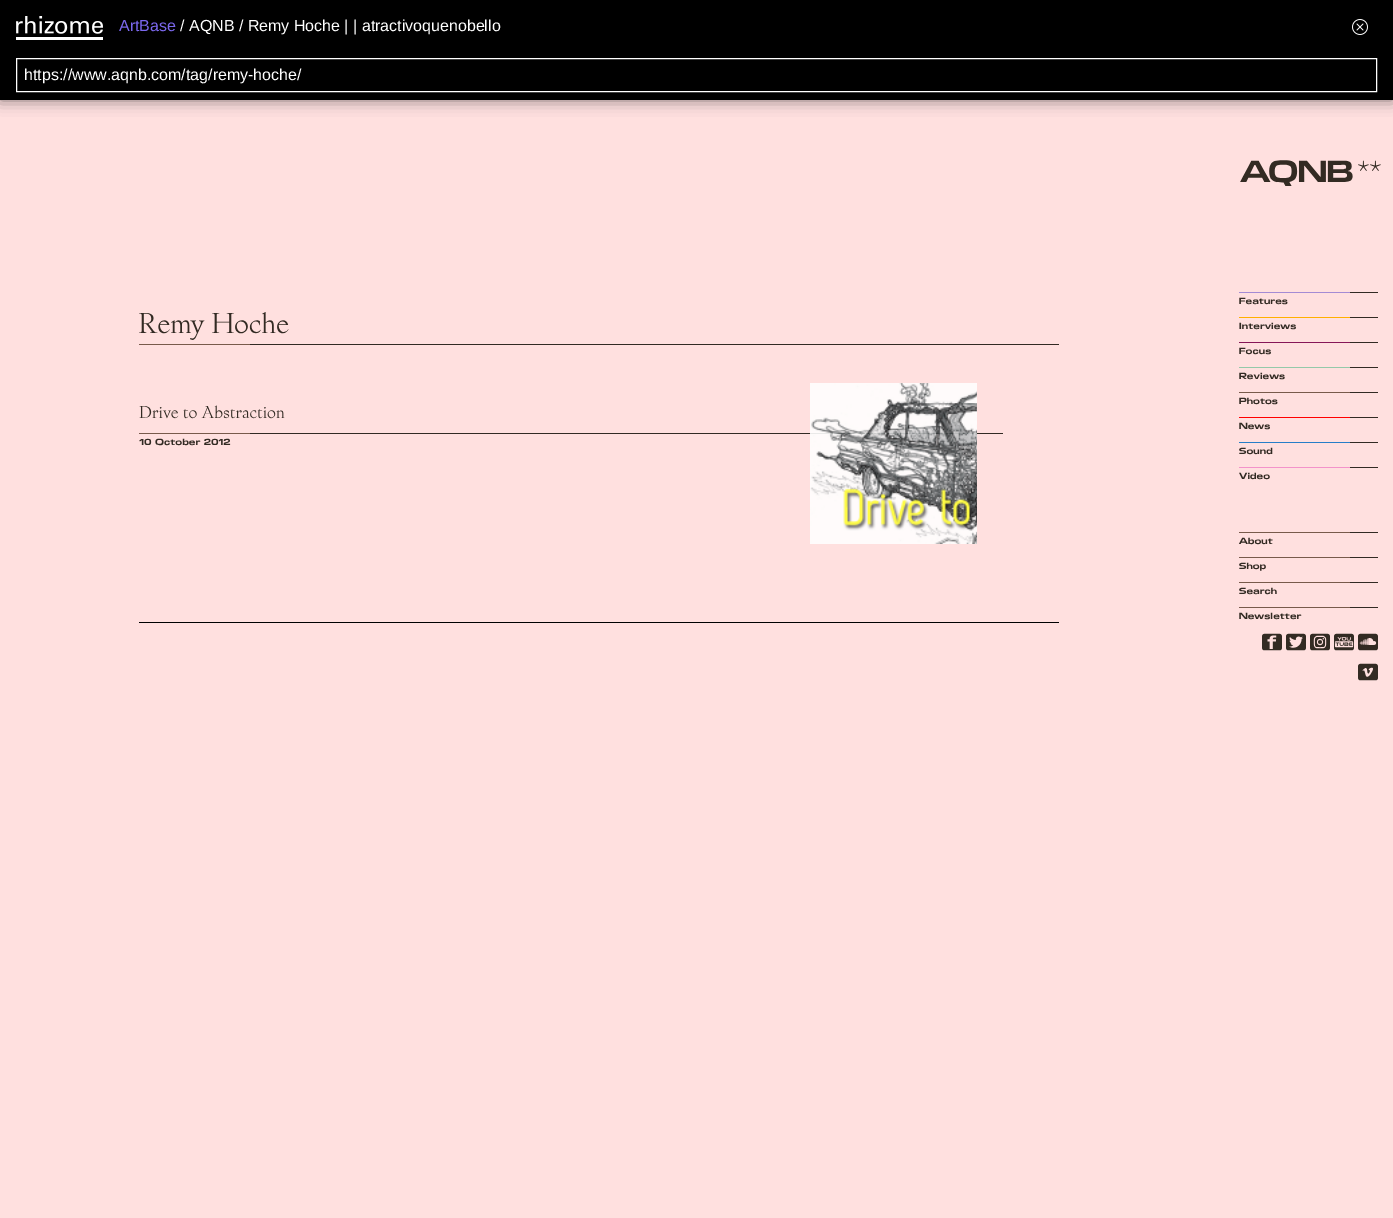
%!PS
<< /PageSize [1393 1218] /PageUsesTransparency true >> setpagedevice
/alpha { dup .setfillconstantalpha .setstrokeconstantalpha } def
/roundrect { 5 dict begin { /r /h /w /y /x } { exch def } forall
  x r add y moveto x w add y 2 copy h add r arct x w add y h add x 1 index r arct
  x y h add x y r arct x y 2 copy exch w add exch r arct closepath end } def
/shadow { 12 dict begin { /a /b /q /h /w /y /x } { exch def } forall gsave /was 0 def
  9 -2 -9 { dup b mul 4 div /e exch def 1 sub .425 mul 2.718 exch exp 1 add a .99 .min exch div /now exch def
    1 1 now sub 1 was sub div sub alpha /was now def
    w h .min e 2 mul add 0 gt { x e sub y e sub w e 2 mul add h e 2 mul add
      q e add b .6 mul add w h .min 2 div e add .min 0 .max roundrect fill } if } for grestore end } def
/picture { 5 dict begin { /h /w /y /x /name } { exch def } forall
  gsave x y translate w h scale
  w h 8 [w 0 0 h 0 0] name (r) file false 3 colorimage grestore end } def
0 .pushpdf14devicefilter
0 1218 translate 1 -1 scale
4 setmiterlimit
1 setgray
0 0 1393 1218 rectfill
(img3.rgb) 0 100 1393 1118 picture
0 setgray
0 0 1393 100 0 7.5 0.5 shadow
0 0 1393 100 rectfill
(img1.rgb) 16 16 87 24 picture
/LiberationSans-Regular [16 0 0 -16 0 0] selectfont
0.482 0.408 0.933 setrgbcolor
119 31 moveto (ArtBase) show
1 setgray
180 31 moveto (/ AQNB / Remy Hoche | | atractivoquenobello) show
(img2.rgb) 1352 19 16 16 picture
16.5 58.5 1360 33 rectstroke
24 80 moveto (https://www.aqnb.com/tag/remy-hoche/) show
.poppdf14devicefilter showpage
